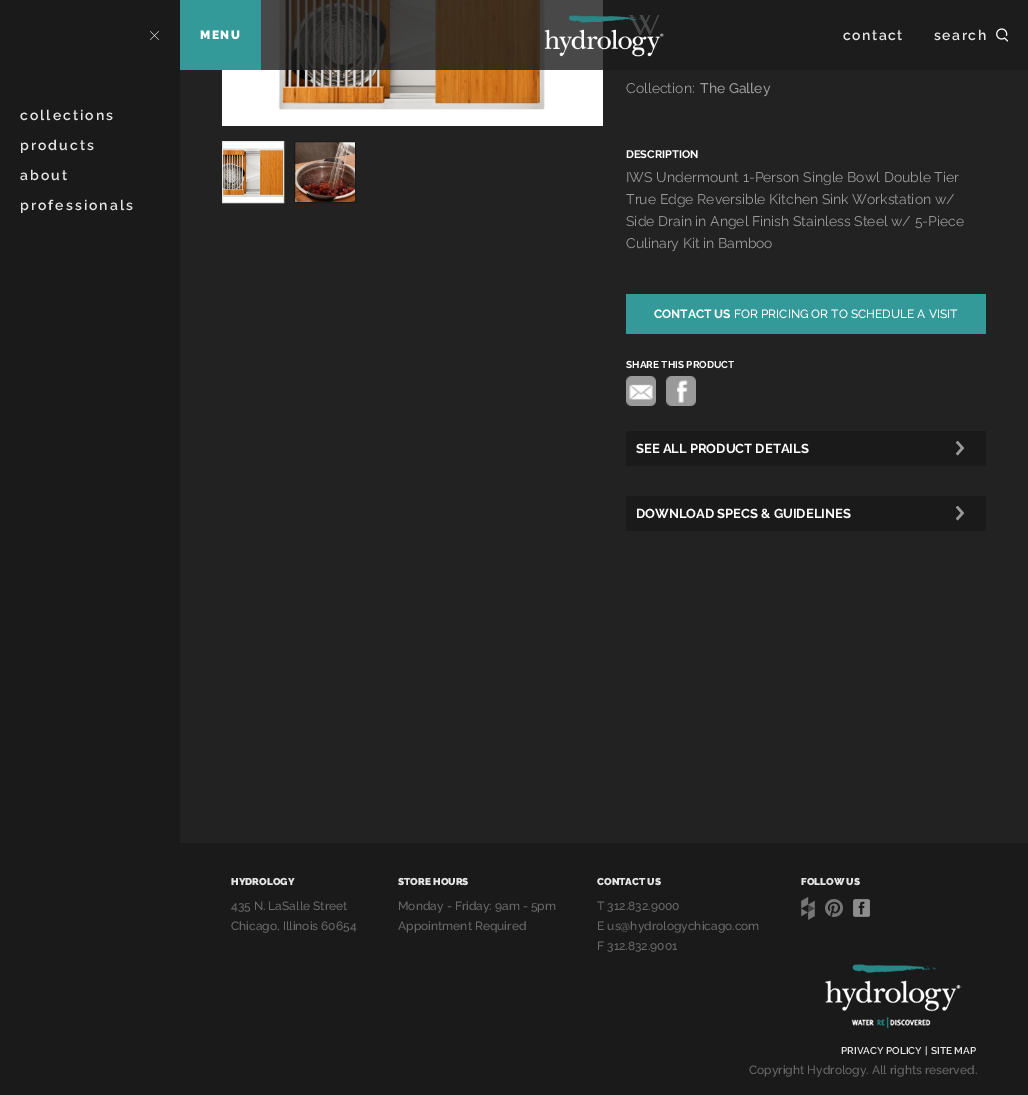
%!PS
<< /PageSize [1028 1095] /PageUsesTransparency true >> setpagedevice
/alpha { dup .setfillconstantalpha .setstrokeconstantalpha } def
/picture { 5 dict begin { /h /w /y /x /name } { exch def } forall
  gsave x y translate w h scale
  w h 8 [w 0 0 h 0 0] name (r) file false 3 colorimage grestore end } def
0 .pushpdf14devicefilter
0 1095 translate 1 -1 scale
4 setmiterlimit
0.102 setgray
0 0 1028 1095 rectfill
0.133 setgray
180 0 848 843 rectfill
(img4.rgb) 222 0 381 126 picture
0.8 alpha
0.102 setgray
261 0 767 70 rectfill
1 alpha
0.2 0.6 0.6 setrgbcolor
180 0 81 70 rectfill
/Raleway-Black [12 0 0 -12 0 0] selectfont
1 setgray
200 39 moveto 1.5 0 (MENU) ashow
(img1.rgb) 544 15 120 42 picture
/Raleway-SemiBold [14 0 0 -14 0 0] selectfont
0.894 0.898 0.902 setrgbcolor
843 40 moveto 1.5 0 (contact) ashow
934 40 moveto 1.5 0 (search) ashow
(img2.rgb) 996 28 12 14 picture
(img3.rgb) 150 31 9 9 picture
20 120 moveto 2 0 (collections) ashow
20 150 moveto 2 0 (products) ashow
20 180 moveto 2 0 (about) ashow
20 210 moveto 2 0 (professionals) ashow
(img5.rgb) 223 142 60 60 picture
222.5 141.5 61 61 rectstroke
(img6.rgb) 295 142 60 60 picture
0.102 setgray
294.5 141.5 61 61 rectstroke
/Raleway-Regular [14 0 0 -14 0 0] selectfont
0.6 setgray
626 93 moveto (Collection:) show
/Raleway-Medium [14 0 0 -14 0 0] selectfont
700 93 moveto (The Galley) show
/Raleway-Bold [11 0 0 -11 0 0] selectfont
1 setgray
626 158 moveto (DESCRIPTION) show
/Raleway-Regular [14 0 0 -14 0 0] selectfont
0.6 setgray
626 182 moveto (IWS Undermount 1-Person Single Bowl Double Tier) show
626 204 moveto (True Edge Reversible Kitchen Sink Workstation w/) show
626 226 moveto (Side Drain in Angel Finish Stainless Steel w/ 5-Piece) show
626 248 moveto (Culinary Kit in Bamboo) show
0.2 0.6 0.6 setrgbcolor
626 294 360 40 rectfill
/Raleway-Bold [12 0 0 -12 0 0] selectfont
1 setgray
654 318 moveto (CONTACT US) show
/Raleway-Medium [12 0 0 -12 0 0] selectfont
734 318 moveto (FOR PRICING OR TO SCHEDULE A VISIT) show
/Raleway-Bold [10 0 0 -10 0 0] selectfont
626 368 moveto (SHARE THIS PRODUCT) show
(img7.rgb) 626 376 30 30 picture
(img8.rgb) 666 376 30 30 picture
0.102 setgray
626 431 360 35 rectfill
/Raleway-Bold [13 0 0 -13 0 0] selectfont
1 setgray
636 453 moveto (SEE ALL PRODUCT DETAILS) show
(img9.rgb) 955 441 10 15 picture
0.102 setgray
626 496 360 35 rectfill
1 setgray
636 518 moveto (DOWNLOAD SPECS & GUIDELINES) show
(img9.rgb) 955 506 10 15 picture
/Raleway-Black [10 0 0 -10 0 0] selectfont
0.894 0.898 0.902 setrgbcolor
231 885 moveto (HYDROLOGY) show
/Raleway-Medium [12 0 0 -12 0 0] selectfont
0.42 0.416 0.412 setrgbcolor
231 910 moveto (435 N. LaSalle Street) show
231 930 moveto (Chicago, Illinois 60654) show
/Raleway-Black [10 0 0 -10 0 0] selectfont
0.894 0.898 0.902 setrgbcolor
398 885 moveto (STORE HOURS) show
/Raleway-Medium [12 0 0 -12 0 0] selectfont
0.42 0.416 0.412 setrgbcolor
398 910 moveto (Monday - Friday: 9am - 5pm) show
398 930 moveto (Appointment Required) show
/Raleway-Black [10 0 0 -10 0 0] selectfont
0.894 0.898 0.902 setrgbcolor
597 885 moveto (CONTACT US) show
/Raleway-Medium [12 0 0 -12 0 0] selectfont
0.42 0.416 0.412 setrgbcolor
597 910 moveto (T 312.832.9000) show
597 930 moveto (E us@hydrologychicago.com) show
597 950 moveto (F 312.832.9001) show
/Raleway-Black [10 0 0 -10 0 0] selectfont
0.894 0.898 0.902 setrgbcolor
801 885 moveto (FOLLOW US) show
(img10.rgb) 801 897 14 23 picture
(img11.rgb) 825 899 18 18 picture
(img12.rgb) 853 899 17 18 picture
(img13.rgb) 824 963 138 66 picture
/Raleway-SemiBold [10 0 0 -10 0 0] selectfont
841 1054 moveto (PRIVACY POLICY) show
925 1054 moveto (|) show
931 1054 moveto (SITE MAP) show
/Raleway-Medium [12 0 0 -12 0 0] selectfont
0.42 0.416 0.412 setrgbcolor
749 1074 moveto (Copyright Hydrology. All rights reserved.) show
.poppdf14devicefilter showpage
